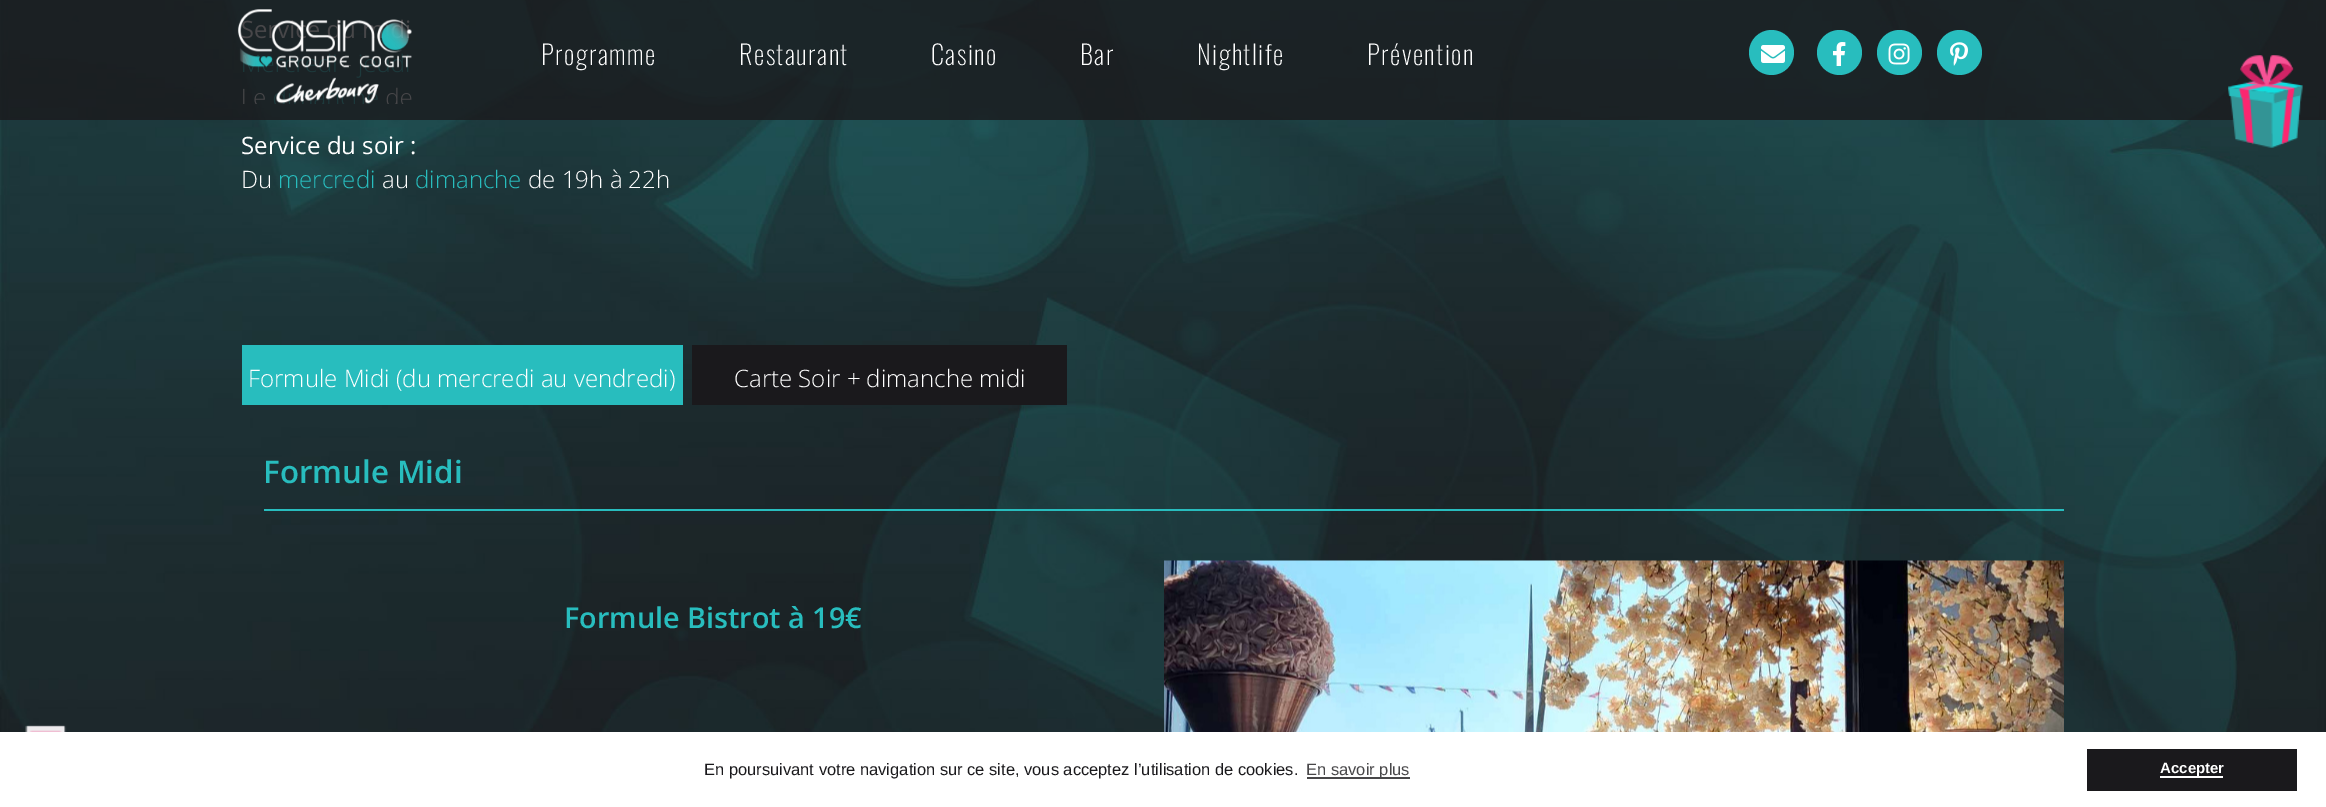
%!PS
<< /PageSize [2326 807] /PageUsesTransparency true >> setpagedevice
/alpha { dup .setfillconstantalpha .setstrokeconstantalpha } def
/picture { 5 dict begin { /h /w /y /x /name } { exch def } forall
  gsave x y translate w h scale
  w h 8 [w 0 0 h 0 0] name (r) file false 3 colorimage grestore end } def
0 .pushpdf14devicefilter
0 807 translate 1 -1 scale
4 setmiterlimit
1 setgray
0 0 2326 807 rectfill
(img1.rgb) 0 0 2326 732 picture
0.8 alpha
0.102 0.098 0.11 setrgbcolor
0 0 2326 120 rectfill
1 alpha
(img2.rgb) 237 9 175 95 picture
/Oswald-ExtraLight [26.5 0 0 -26.5 0 0] selectfont
1 setgray
541 65 moveto 1.5 0 (Programme) ashow
739 65 moveto 1.5 0 (Restaurant) ashow
931 65 moveto 1.5 0 (Casino) ashow
1080 65 moveto 1.5 0 (Bar) ashow
1197 65 moveto 1.5 0 (Nightlife) ashow
1367 65 moveto 1.5 0 (Prévention) ashow
0.157 0.741 0.745 setrgbcolor
newpath 1771.5 52.5 22.5 0 360 arc closepath fill
(img3.rgb) 1761 45 24 18 picture
newpath 1839.5 52.5 22.5 0 360 arc closepath fill
(img4.rgb) 1833 42 13 24 picture
newpath 1899.5 52.5 22.5 0 360 arc closepath fill
(img5.rgb) 1888 43 22 22 picture
newpath 1959.5 52.5 22.5 0 360 arc closepath fill
(img6.rgb) 1950 42 18 24 picture
/OpenSans-Regular [24 0 0 -24 0 0] selectfont
1 setgray
241 154 moveto (Service du soir :) show
/OpenSans-Light [24 0 0 -24 0 0] selectfont
241 188 moveto (Du) show
0.157 0.741 0.745 setrgbcolor
278 188 moveto (mercredi) show
1 setgray
382 188 moveto (au) show
0.157 0.741 0.745 setrgbcolor
415 188 moveto (dimanche) show
1 setgray
528 188 moveto (de 19h à 22h) show
0.157 0.741 0.745 setrgbcolor
242 345 441 60 rectfill
1 setgray
248 387 moveto (Formule Midi \(du mercredi au vendredi\)) show
0.102 0.098 0.11 setrgbcolor
692 345 375 60 rectfill
1 setgray
734 387 moveto (Carte Soir + dimanche midi) show
/OpenSans-SemiBold [31.25 0 0 -31.25 0 0] selectfont
0.157 0.741 0.745 setrgbcolor
263 483 moveto (Formule Midi) show
264 509 1800 2 rectfill
/OpenSans-SemiBold [28.75 0 0 -28.75 0 0] selectfont
564 628 moveto (Formule Bistrot à 19€) show
(img7.rgb) 1164 560 900 172 picture
(img8.rgb) 25 725 42 7 picture
(img9.rgb) 2228 55 75 93 picture
/LiberationSans-Regular [16.5 0 0 -16.5 0 0] selectfont
0.102 0.098 0.11 setrgbcolor
704 775 moveto (En poursuivant votre navigation sur ce site, vous acceptez l’utilisation de cookies.) show
0.282 0.278 0.286 setrgbcolor
1307 777 103 2 rectfill
1306 775 moveto (En savoir plus) show
0.102 0.098 0.11 setrgbcolor
2087 749 210 42 rectfill
1 setgray
2160 776 63 2 rectfill
/LiberationSans-Bold [15 0 0 -15 0 0] selectfont
2160 773 moveto (Accepter) show
.poppdf14devicefilter showpage
